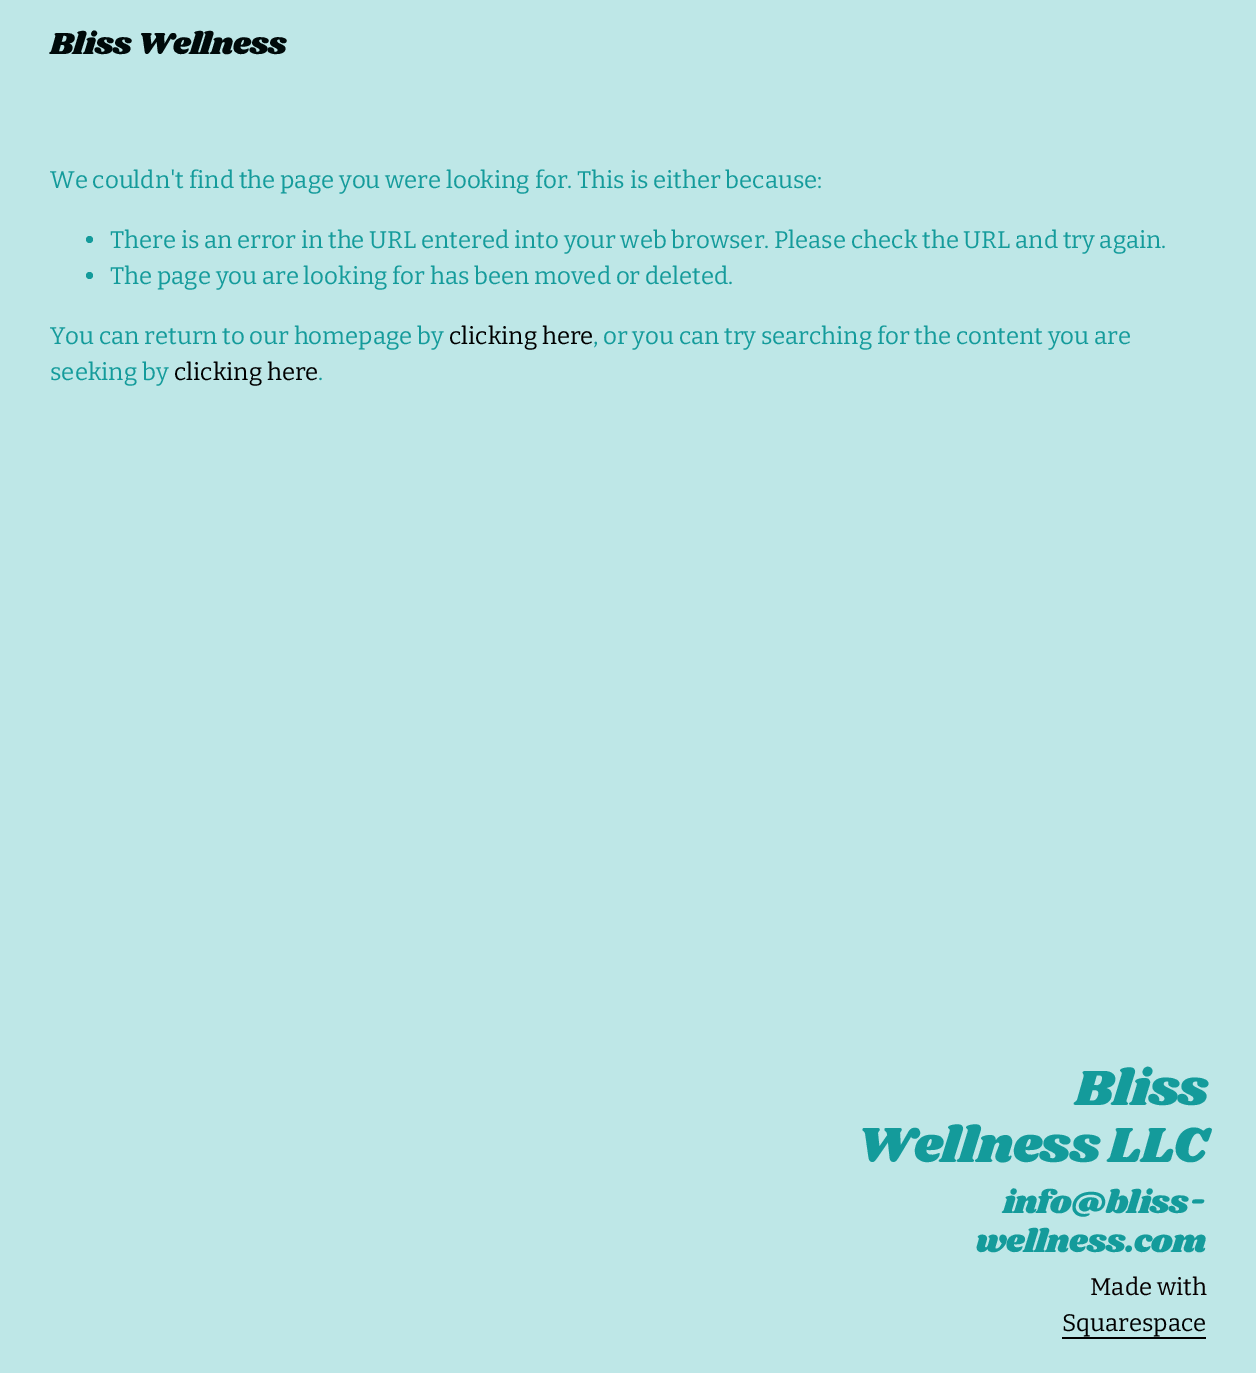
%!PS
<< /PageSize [1256 1373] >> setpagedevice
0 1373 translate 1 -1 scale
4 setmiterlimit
0.745 0.906 0.906 setrgbcolor
0 0 1256 1373 rectfill
/Shrikhand-Regular [31.5 0 0 -31.5 0 0] selectfont
0 0.039 0.039 setrgbcolor
50 54 moveto -0.6 0 (Bliss Wellness) ashow
/Bitter-Regular [24 0 0 -24 0 0] selectfont
0.078 0.608 0.608 setrgbcolor
50 188 moveto (We couldn't find the page you were looking for. This is either because:) show
newpath 89.5 239.5 3.5 0 360 arc closepath fill
110 248 moveto (There is an error in the URL entered into your web browser. Please check the URL and try again.) show
newpath 89.5 275.5 3.5 0 360 arc closepath fill
110 284 moveto (The page you are looking for has been moved or deleted.) show
50 344 moveto (You can return to our homepage by) show
0 setgray
449 344 moveto (clicking here) show
0.078 0.608 0.608 setrgbcolor
593 344 moveto (, or you can try searching for the content you are) show
50 380 moveto (seeking by) show
0 setgray
174 380 moveto (clicking here) show
0.078 0.608 0.608 setrgbcolor
318 380 moveto (.) show
/Shrikhand-Regular [51.25 0 0 -51.25 0 0] selectfont
1075 1105 moveto -1 0 (Bliss) ashow
856 1162 moveto -1 0 (Wellness LLC) ashow
/Shrikhand-Regular [33 0 0 -33 0 0] selectfont
1003 1213 moveto -0.7 0 (info@bliss-) ashow
976 1252 moveto -0.7 0 (wellness.com) ashow
/Bitter-Regular [24 0 0 -24 0 0] selectfont
0.024 0 0 setrgbcolor
1090 1295 moveto (Made with) show
0 setgray
1062 1331 moveto (Squarespace) show
1062 1337 144 2 rectfill
showpage
